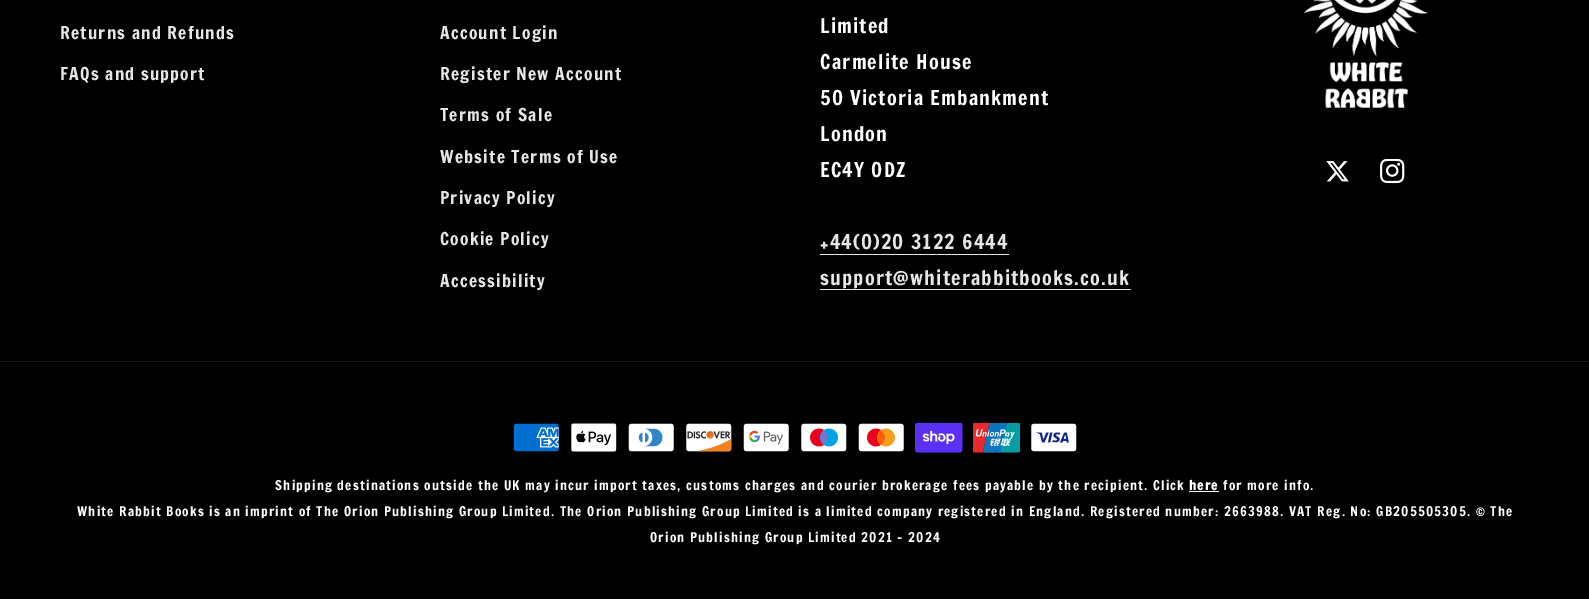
%!PS
<< /PageSize [1589 599] >> setpagedevice
/picture { 5 dict begin { /h /w /y /x /name } { exch def } forall
  gsave x y translate w h scale
  w h 8 [w 0 0 h 0 0] name (r) file false 3 colorimage grestore end } def
0 599 translate 1 -1 scale
4 setmiterlimit
0 setgray
0 0 1589 599 rectfill
/FrancoisOne-Regular [17.4 0 0 -17.4 0 0] selectfont
0.902 setgray
60 39 moveto 1.2 0 (Returns and Refunds) ashow
60 80 moveto 1.2 0 (FAQs and support) ashow
440 39 moveto 1.2 0 (Account Login) ashow
440 80 moveto 1.2 0 (Register New Account) ashow
440 121 moveto 1.2 0 (Terms of Sale) ashow
440 163 moveto 1.2 0 (Website Terms of Use) ashow
440 204 moveto 1.2 0 (Privacy Policy) ashow
440 245 moveto 1.2 0 (Cookie Policy) ashow
440 287 moveto 1.2 0 (Accessibility) ashow
/FrancoisOne-Regular [20 0 0 -20 0 0] selectfont
1 setgray
820 33 moveto 1.2 0 (Limited) ashow
820 69 moveto 1.2 0 (Carmelite House) ashow
820 105 moveto 1.2 0 (50 Victoria Embankment) ashow
820 141 moveto 1.2 0 (London) ashow
820 177 moveto 1.2 0 (EC4Y 0DZ) ashow
0.902 setgray
820 249 moveto 1.2 0 (+44\(0\)20 3122 6444) ashow
820 254 189 1 rectfill
820 285 moveto 1.2 0 (support@whiterabbitbooks.co.uk) ashow
820 289 311 1 rectfill
(img1.rgb) 1303 0 125 108 picture
(img2.rgb) 1326 161 23 21 picture
(img3.rgb) 1380 159 25 25 picture
0.078 setgray
0 361 1589 1 rectfill
(img4.rgb) 513 423 46 29 picture
(img5.rgb) 571 423 46 29 picture
(img6.rgb) 628 423 46 29 picture
(img7.rgb) 686 423 46 29 picture
(img8.rgb) 743 423 46 29 picture
(img9.rgb) 801 423 46 29 picture
(img10.rgb) 858 423 46 29 picture
(img11.rgb) 915 423 48 30 picture
(img12.rgb) 973 423 47 30 picture
(img13.rgb) 1031 423 46 29 picture
/FrancoisOne-Regular [13.16 0 0 -13.16 0 0] selectfont
1 setgray
275 490 moveto 1.2 0 (Shipping destinations outside the UK may incur import taxes, customs charges and courier brokerage fees payable by the recipient. Click) ashow
/FrancoisOne-Bold [13.16 0 0 -13.16 0 0] selectfont
1189 490 moveto 1.2 0 (here) ashow
1189 491 30 1 rectfill
/FrancoisOne-Regular [13.16 0 0 -13.16 0 0] selectfont
1223 490 moveto 1.2 0 (for more info.) ashow
77 516 moveto 1.2 0 (White Rabbit Books is an imprint of The Orion Publishing Group Limited. The Orion Publishing Group Limited is a limited company registered in England. Registered number: 2663988. VAT Reg. No: GB205505305. © The) ashow
650 542 moveto 1.2 0 (Orion Publishing Group Limited 2021 - 2024) ashow
showpage
